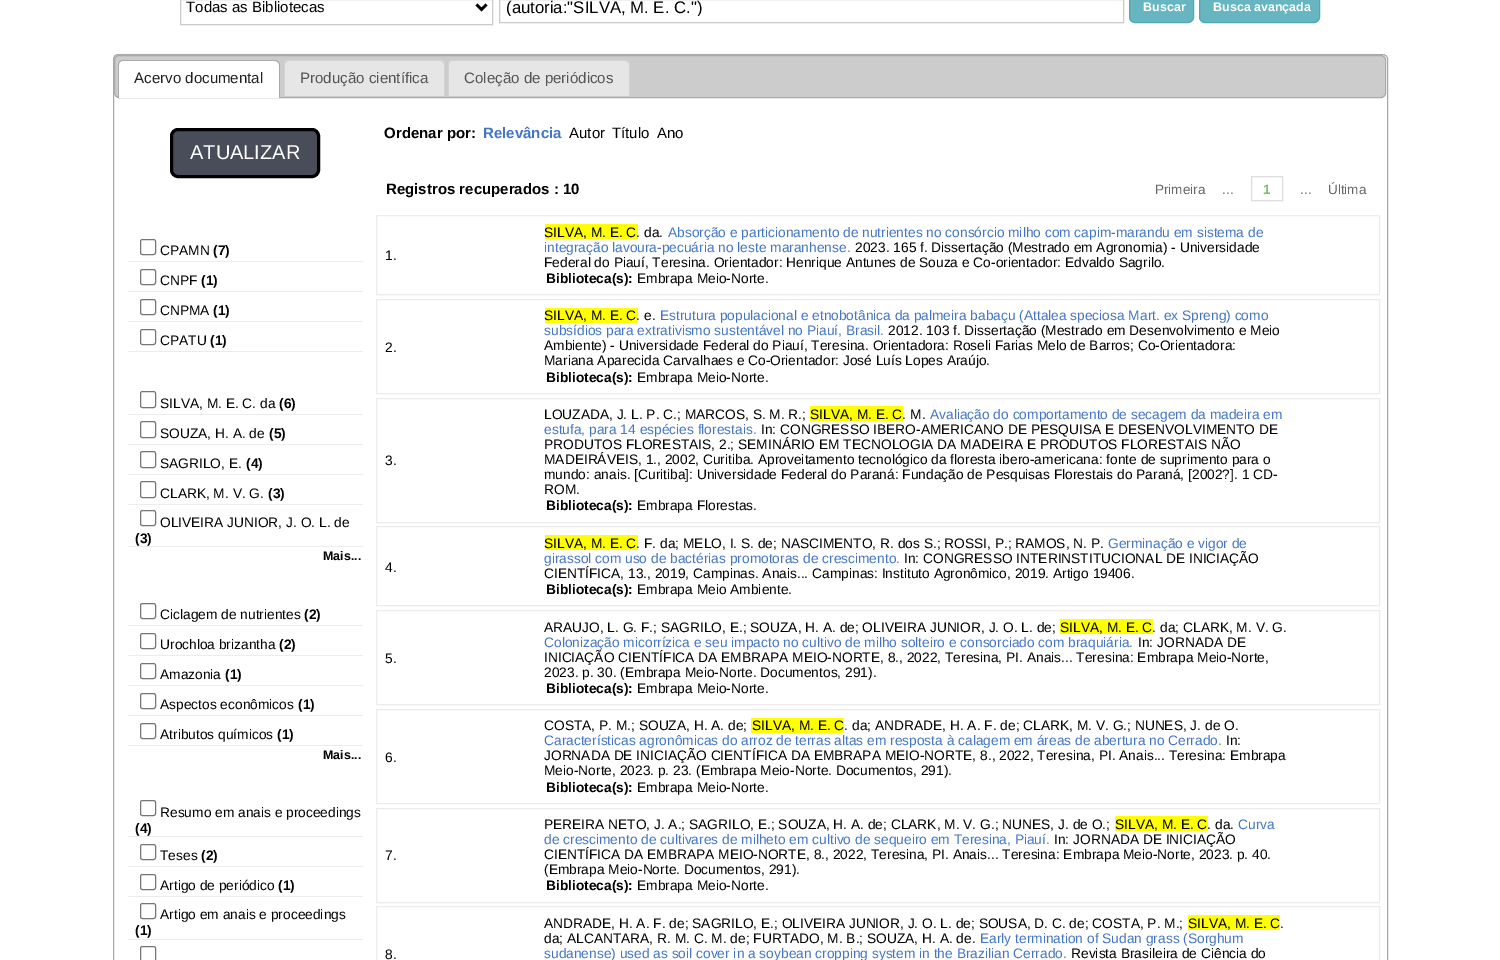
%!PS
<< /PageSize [1500 960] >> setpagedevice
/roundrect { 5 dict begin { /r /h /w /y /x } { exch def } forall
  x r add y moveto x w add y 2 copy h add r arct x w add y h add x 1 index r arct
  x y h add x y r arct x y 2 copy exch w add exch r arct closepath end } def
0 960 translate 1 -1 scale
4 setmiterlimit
1 setgray
0 0 1500 960 rectfill
0.796 0.792 0.792 setrgbcolor
180.5 -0.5 312 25 rectstroke
0 setgray
2.5 setlinewidth
newpath 476.5 4.5 moveto 481.5 9.5 lineto 486.5 4.5 lineto stroke
/LiberationSans-Regular [15 0 0 -15 0 0] selectfont
186 12 moveto (Todas as Bibliotecas) show
0.796 0.792 0.792 setrgbcolor
1 setlinewidth
499.5 -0.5 624 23 rectstroke
gsave
506 0 614 16 rectclip
/LiberationSans-Regular [16.75 0 0 -16.75 0 0] selectfont
0 setgray
506 13 moveto (\(autoria:"SILVA, M. E. C."\)) show
grestore
0.4 0.71 0.757 setrgbcolor
1129.5 -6.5 64 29 5.5 roundrect gsave fill grestore
0.31 0.659 0.714 setrgbcolor
stroke
/LiberationSans-Bold [12.5 0 0 -12.5 0 0] selectfont
1 setgray
1143 11 moveto (Buscar) show
0.4 0.71 0.757 setrgbcolor
1199.5 -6.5 120 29 5.5 roundrect gsave fill grestore
0.31 0.659 0.714 setrgbcolor
stroke
1 setgray
1213 11 moveto (Busca avançada) show
0.667 setgray
113.5 54.5 1274 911 4.5 roundrect stroke
0.8 setgray
114.5 55.5 1271 42 4.5 roundrect gsave fill grestore
0.667 setgray
stroke
1 setgray
newpath 123 60 moveto 275 60 lineto 278 60 280 62 280 65 curveto 280 98 lineto 118 98 lineto 118 65 lineto 118 62 120 60 123 60 curveto closepath fill
0.667 setgray
newpath 122 60 moveto 275 60 lineto 278 60 280 62 280 65 curveto 280 98 lineto 118 98 lineto 118 65 lineto 118 62 120 60 122 60 curveto closepath 122 61 moveto 275 61 lineto 277 61 279 63 279 65 curveto 279 98 lineto 119 98 lineto 119 65 lineto 119 63 120 61 122 61 curveto closepath eofill
/LiberationSans-Regular [15.1 0 0 -15.1 0 0] selectfont
0.129 setgray
134 83 moveto (Acervo documental) show
0.902 setgray
newpath 289 60 moveto 440 60 lineto 443 60 445 62 445 65 curveto 445 96 lineto 284 96 lineto 284 65 lineto 284 62 286 60 289 60 curveto closepath fill
0.827 setgray
newpath 289 60 moveto 440 60 lineto 443 60 445 62 445 65 curveto 445 96 lineto 284 96 lineto 284 65 lineto 284 62 286 60 289 60 curveto closepath 289 61 moveto 440 61 lineto 442 61 444 63 444 65 curveto 444 96 lineto 285 96 lineto 285 65 lineto 285 63 287 61 289 61 curveto closepath eofill
0.333 setgray
300 83 moveto (Produção científica) show
0.902 setgray
newpath 453 60 moveto 625 60 lineto 628 60 630 62 630 65 curveto 630 96 lineto 448 96 lineto 448 65 lineto 448 62 450 60 453 60 curveto closepath fill
0.827 setgray
newpath 452 60 moveto 625 60 lineto 628 60 630 62 630 65 curveto 630 96 lineto 448 96 lineto 448 65 lineto 448 62 450 60 452 60 curveto closepath 452 61 moveto 625 61 lineto 627 61 629 63 629 65 curveto 629 96 lineto 449 96 lineto 449 65 lineto 449 63 450 61 452 61 curveto closepath eofill
0.333 setgray
464 83 moveto (Coleção de periódicos) show
0.286 0.302 0.349 setrgbcolor
171.5 129.5 147 47 6.5 roundrect gsave fill grestore
0 setgray
3 setlinewidth
stroke
/LiberationSans-Regular [20 0 0 -20 0 0] selectfont
1 setgray
190 159 moveto (ATUALIZAR) show
0.925 setgray
128 261 235 1 rectfill
0.463 setgray
1 setlinewidth
140.5 239.5 15 15 2 roundrect stroke
/LiberationSans-Regular [13.75 0 0 -13.75 0 0] selectfont
0 setgray
160 255 moveto (CPAMN) show
/LiberationSans-Bold [13.75 0 0 -13.75 0 0] selectfont
213 255 moveto (\(7\)) show
0.925 setgray
128 291 235 1 rectfill
0.463 setgray
140.5 269.5 15 15 2 roundrect stroke
/LiberationSans-Regular [13.75 0 0 -13.75 0 0] selectfont
0 setgray
160 285 moveto (CNPF) show
/LiberationSans-Bold [13.75 0 0 -13.75 0 0] selectfont
201 285 moveto (\(1\)) show
0.925 setgray
128 321 235 1 rectfill
0.463 setgray
140.5 299.5 15 15 2 roundrect stroke
/LiberationSans-Regular [13.75 0 0 -13.75 0 0] selectfont
0 setgray
160 315 moveto (CNPMA) show
/LiberationSans-Bold [13.75 0 0 -13.75 0 0] selectfont
213 315 moveto (\(1\)) show
0.925 setgray
128 351 235 1 rectfill
0.463 setgray
140.5 329.5 15 15 2 roundrect stroke
/LiberationSans-Regular [13.75 0 0 -13.75 0 0] selectfont
0 setgray
160 345 moveto (CPATU) show
/LiberationSans-Bold [13.75 0 0 -13.75 0 0] selectfont
210 345 moveto (\(1\)) show
0.925 setgray
128 414 235 1 rectfill
0.463 setgray
140.5 391.5 15 16 2 roundrect stroke
/LiberationSans-Regular [13.75 0 0 -13.75 0 0] selectfont
0 setgray
160 408 moveto (SILVA, M. E. C. da) show
/LiberationSans-Bold [13.75 0 0 -13.75 0 0] selectfont
279 408 moveto (\(6\)) show
0.925 setgray
128 444 235 1 rectfill
0.463 setgray
140.5 421.5 15 16 2 roundrect stroke
/LiberationSans-Regular [13.75 0 0 -13.75 0 0] selectfont
0 setgray
160 438 moveto (SOUZA, H. A. de) show
/LiberationSans-Bold [13.75 0 0 -13.75 0 0] selectfont
269 438 moveto (\(5\)) show
0.925 setgray
128 474 235 1 rectfill
0.463 setgray
140.5 451.5 15 16 2 roundrect stroke
/LiberationSans-Regular [13.75 0 0 -13.75 0 0] selectfont
0 setgray
160 468 moveto (SAGRILO, E.) show
/LiberationSans-Bold [13.75 0 0 -13.75 0 0] selectfont
246 468 moveto (\(4\)) show
0.925 setgray
128 504 235 1 rectfill
0.463 setgray
140.5 481.5 15 16 2 roundrect stroke
/LiberationSans-Regular [13.75 0 0 -13.75 0 0] selectfont
0 setgray
160 498 moveto (CLARK, M. V. G.) show
/LiberationSans-Bold [13.75 0 0 -13.75 0 0] selectfont
268 498 moveto (\(3\)) show
0.925 setgray
128 546 235 1 rectfill
0.463 setgray
140.5 510.5 15 15 2 roundrect stroke
/LiberationSans-Regular [13.75 0 0 -13.75 0 0] selectfont
0 setgray
160 527 moveto (OLIVEIRA JUNIOR, J. O. L. de) show
/LiberationSans-Bold [13.75 0 0 -13.75 0 0] selectfont
135 543 moveto (\(3\)) show
/LiberationSans-Bold [12.5 0 0 -12.5 0 0] selectfont
323 560 moveto (Mais...) show
0.925 setgray
128 625 235 1 rectfill
0.463 setgray
140.5 603.5 15 15 2 roundrect stroke
/LiberationSans-Regular [13.75 0 0 -13.75 0 0] selectfont
0 setgray
160 619 moveto (Ciclagem de nutrientes) show
/LiberationSans-Bold [13.75 0 0 -13.75 0 0] selectfont
304 619 moveto (\(2\)) show
0.925 setgray
128 655 235 1 rectfill
0.463 setgray
140.5 633.5 15 15 2 roundrect stroke
/LiberationSans-Regular [13.75 0 0 -13.75 0 0] selectfont
0 setgray
160 649 moveto (Urochloa brizantha) show
/LiberationSans-Bold [13.75 0 0 -13.75 0 0] selectfont
279 649 moveto (\(2\)) show
0.925 setgray
128 685 235 1 rectfill
0.463 setgray
140.5 663.5 15 15 2 roundrect stroke
/LiberationSans-Regular [13.75 0 0 -13.75 0 0] selectfont
0 setgray
160 679 moveto (Amazonia) show
/LiberationSans-Bold [13.75 0 0 -13.75 0 0] selectfont
225 679 moveto (\(1\)) show
0.925 setgray
128 715 235 1 rectfill
0.463 setgray
140.5 693.5 15 15 2 roundrect stroke
/LiberationSans-Regular [13.75 0 0 -13.75 0 0] selectfont
0 setgray
160 709 moveto (Aspectos econômicos) show
/LiberationSans-Bold [13.75 0 0 -13.75 0 0] selectfont
298 709 moveto (\(1\)) show
0.925 setgray
128 745 235 1 rectfill
0.463 setgray
140.5 723.5 15 15 2 roundrect stroke
/LiberationSans-Regular [13.75 0 0 -13.75 0 0] selectfont
0 setgray
160 739 moveto (Atributos químicos) show
/LiberationSans-Bold [13.75 0 0 -13.75 0 0] selectfont
277 739 moveto (\(1\)) show
/LiberationSans-Bold [12.5 0 0 -12.5 0 0] selectfont
323 759 moveto (Mais...) show
0.925 setgray
128 836 235 1 rectfill
0.463 setgray
140.5 800.5 15 15 2 roundrect stroke
/LiberationSans-Regular [13.75 0 0 -13.75 0 0] selectfont
0 setgray
160 817 moveto (Resumo em anais e proceedings) show
/LiberationSans-Bold [13.75 0 0 -13.75 0 0] selectfont
135 833 moveto (\(4\)) show
0.925 setgray
128 866 235 1 rectfill
0.463 setgray
140.5 844.5 15 15 2 roundrect stroke
/LiberationSans-Regular [13.75 0 0 -13.75 0 0] selectfont
0 setgray
160 860 moveto (Teses) show
/LiberationSans-Bold [13.75 0 0 -13.75 0 0] selectfont
201 860 moveto (\(2\)) show
0.925 setgray
128 896 235 1 rectfill
0.463 setgray
140.5 874.5 15 15 2 roundrect stroke
/LiberationSans-Regular [13.75 0 0 -13.75 0 0] selectfont
0 setgray
160 890 moveto (Artigo de periódico) show
/LiberationSans-Bold [13.75 0 0 -13.75 0 0] selectfont
278 890 moveto (\(1\)) show
0.925 setgray
128 939 235 1 rectfill
0.463 setgray
140.5 903.5 15 15 2 roundrect stroke
/LiberationSans-Regular [13.75 0 0 -13.75 0 0] selectfont
0 setgray
160 919 moveto (Artigo em anais e proceedings) show
/LiberationSans-Bold [13.75 0 0 -13.75 0 0] selectfont
135 935 moveto (\(1\)) show
0.463 setgray
140.5 946.5 15 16 2 roundrect stroke
/LiberationSans-Bold [15 0 0 -15 0 0] selectfont
0 setgray
384 138 moveto (Ordenar por:) show
0.263 0.459 0.769 setrgbcolor
483 138 moveto (Relevância) show
/LiberationSans-Regular [15 0 0 -15 0 0] selectfont
0 setgray
569 138 moveto (Autor) show
612 138 moveto (Título) show
657 138 moveto (Ano) show
/LiberationSans-Bold [15 0 0 -15 0 0] selectfont
386 194 moveto (Registros recuperados : 10) show
/LiberationSans-Regular [13.5 0 0 -13.5 0 0] selectfont
0.4 setgray
1155 194 moveto (Primeira) show
1222 194 moveto (...) show
0.867 setgray
1251.5 176.5 31 24 rectstroke
/LiberationSans-Bold [13.5 0 0 -13.5 0 0] selectfont
0.49 0.745 0.404 setrgbcolor
1263 194 moveto (1) show
/LiberationSans-Regular [13.5 0 0 -13.5 0 0] selectfont
0.4 setgray
1300 194 moveto (...) show
1328 194 moveto (Última) show
0.925 setgray
376.5 215.5 1003 79 rectstroke
/LiberationSans-Regular [13.75 0 0 -13.75 0 0] selectfont
0 setgray
385 260 moveto (1.) show
1 1 0 setrgbcolor
545 224 93 15 rectfill
0 setgray
544 237 moveto (SILVA, M. E. C. da.) show
0.263 0.459 0.769 setrgbcolor
668 237 moveto (Absorção e particionamento de nutrientes no consórcio milho com capim-marandu em sistema de) show
544 252 moveto (integração lavoura-pecuária no leste maranhense.) show
0 setgray
855 252 moveto (2023. 165 f. Dissertação \(Mestrado em Agronomia\) - Universidade) show
544 267 moveto (Federal do Piauí, Teresina. Orientador: Henrique Antunes de Souza e Co-orientador: Edvaldo Sagrilo.) show
/LiberationSans-Bold [13.75 0 0 -13.75 0 0] selectfont
546 283 moveto (Biblioteca\(s\):) show
/LiberationSans-Regular [13.75 0 0 -13.75 0 0] selectfont
637 283 moveto (Embrapa Meio-Norte.) show
0.925 setgray
376.5 299.5 1003 94 rectstroke
0 setgray
385 352 moveto (2.) show
1 1 0 setrgbcolor
545 308 93 15 rectfill
0 setgray
544 320 moveto (SILVA, M. E. C. e.) show
0.263 0.459 0.769 setrgbcolor
660 320 moveto (Estrutura populacional e etnobotânica da palmeira babaçu \(Attalea speciosa Mart. ex Spreng\) como) show
544 335 moveto (subsídios para extrativismo sustentável no Piauí, Brasil.) show
0 setgray
888 335 moveto (2012. 103 f. Dissertação \(Mestrado em Desenvolvimento e Meio) show
544 350 moveto (Ambiente\) - Universidade Federal do Piauí, Teresina. Orientadora: Roseli Farias Melo de Barros; Co-Orientadora:) show
544 365 moveto (Mariana Aparecida Carvalhaes e Co-Orientador: José Luís Lopes Araújo.) show
/LiberationSans-Bold [13.75 0 0 -13.75 0 0] selectfont
546 382 moveto (Biblioteca\(s\):) show
/LiberationSans-Regular [13.75 0 0 -13.75 0 0] selectfont
637 382 moveto (Embrapa Meio-Norte.) show
0.925 setgray
376.5 398.5 1003 124 rectstroke
0 setgray
385 465 moveto (3.) show
544 419 moveto (LOUZADA, J. L. P. C.; MARCOS, S. M. R.;) show
1 1 0 setrgbcolor
810 406 93 15 rectfill
0 setgray
810 419 moveto (SILVA, M. E. C. M.) show
0.263 0.459 0.769 setrgbcolor
930 419 moveto (Avaliação do comportamento de secagem da madeira em) show
544 434 moveto (estufa, para 14 espécies florestais.) show
0 setgray
761 434 moveto (In: CONGRESSO IBERO-AMERICANO DE PESQUISA E DESENVOLVIMENTO DE) show
544 449 moveto (PRODUTOS FLORESTAIS, 2.; SEMINÁRIO EM TECNOLOGIA DA MADEIRA E PRODUTOS FLORESTAIS NÃO) show
544 464 moveto (MADEIRÁVEIS, 1., 2002, Curitiba. Aproveitamento tecnológico da floresta ibero-americana: fonte de suprimento para o) show
544 479 moveto (mundo: anais. [Curitiba]: Universidade Federal do Paraná: Fundação de Pesquisas Florestais do Paraná, [2002?]. 1 CD-) show
544 494 moveto (ROM.) show
/LiberationSans-Bold [13.75 0 0 -13.75 0 0] selectfont
546 510 moveto (Biblioteca\(s\):) show
/LiberationSans-Regular [13.75 0 0 -13.75 0 0] selectfont
637 510 moveto (Embrapa Florestas.) show
0.925 setgray
376.5 526.5 1003 79 rectstroke
0 setgray
385 572 moveto (4.) show
1 1 0 setrgbcolor
545 535 93 15 rectfill
0 setgray
544 548 moveto (SILVA, M. E. C. F. da; MELO, I. S. de; NASCIMENTO, R. dos S.; ROSSI, P.; RAMOS, N. P.) show
0.263 0.459 0.769 setrgbcolor
1108 548 moveto (Germinação e vigor de) show
544 563 moveto (girassol com uso de bactérias promotoras de crescimento.) show
0 setgray
904 563 moveto (In: CONGRESSO INTERINSTITUCIONAL DE INICIAÇÃO) show
544 578 moveto (CIENTÍFICA, 13., 2019, Campinas. Anais... Campinas: Instituto Agronômico, 2019. Artigo 19406.) show
/LiberationSans-Bold [13.75 0 0 -13.75 0 0] selectfont
546 594 moveto (Biblioteca\(s\):) show
/LiberationSans-Regular [13.75 0 0 -13.75 0 0] selectfont
637 594 moveto (Embrapa Meio Ambiente.) show
0.925 setgray
376.5 610.5 1003 94 rectstroke
0 setgray
385 663 moveto (5.) show
544 632 moveto (ARAUJO, L. G. F.; SAGRILO, E.; SOUZA, H. A. de; OLIVEIRA JUNIOR, J. O. L. de;) show
1 1 0 setrgbcolor
1060 619 93 15 rectfill
0 setgray
1060 632 moveto (SILVA, M. E. C. da; CLARK, M. V. G.) show
0.263 0.459 0.769 setrgbcolor
544 647 moveto (Colonização micorrízica e seu impacto no cultivo de milho solteiro e consorciado com braquiária.) show
0 setgray
1138 647 moveto (In: JORNADA DE) show
544 662 moveto (INICIAÇÃO CIENTÍFICA DA EMBRAPA MEIO-NORTE, 8., 2022, Teresina, PI. Anais... Teresina: Embrapa Meio-Norte,) show
544 677 moveto (2023. p. 30. \(Embrapa Meio-Norte. Documentos, 291\).) show
/LiberationSans-Bold [13.75 0 0 -13.75 0 0] selectfont
546 693 moveto (Biblioteca\(s\):) show
/LiberationSans-Regular [13.75 0 0 -13.75 0 0] selectfont
637 693 moveto (Embrapa Meio-Norte.) show
0.925 setgray
376.5 709.5 1003 94 rectstroke
0 setgray
385 762 moveto (6.) show
544 730 moveto (COSTA, P. M.; SOUZA, H. A. de;) show
1 1 0 setrgbcolor
751 718 93 15 rectfill
0 setgray
752 730 moveto (SILVA, M. E. C. da; ANDRADE, H. A. F. de; CLARK, M. V. G.; NUNES, J. de O.) show
0.263 0.459 0.769 setrgbcolor
544 745 moveto (Características agronômicas do arroz de terras altas em resposta à calagem em áreas de abertura no Cerrado.) show
0 setgray
1226 745 moveto (In:) show
544 760 moveto (JORNADA DE INICIAÇÃO CIENTÍFICA DA EMBRAPA MEIO-NORTE, 8., 2022, Teresina, PI. Anais... Teresina: Embrapa) show
544 775 moveto (Meio-Norte, 2023. p. 23. \(Embrapa Meio-Norte. Documentos, 291\).) show
/LiberationSans-Bold [13.75 0 0 -13.75 0 0] selectfont
546 792 moveto (Biblioteca\(s\):) show
/LiberationSans-Regular [13.75 0 0 -13.75 0 0] selectfont
637 792 moveto (Embrapa Meio-Norte.) show
0.925 setgray
376.5 808.5 1003 94 rectstroke
0 setgray
385 860 moveto (7.) show
544 829 moveto (PEREIRA NETO, J. A.; SAGRILO, E.; SOUZA, H. A. de; CLARK, M. V. G.; NUNES, J. de O.;) show
1 1 0 setrgbcolor
1115 816 93 15 rectfill
0 setgray
1115 829 moveto (SILVA, M. E. C. da.) show
0.263 0.459 0.769 setrgbcolor
1238 829 moveto (Curva) show
544 844 moveto (de crescimento de cultivares de milheto em cultivo de sequeiro em Teresina, Piauí.) show
0 setgray
1054 844 moveto (In: JORNADA DE INICIAÇÃO) show
544 859 moveto (CIENTÍFICA DA EMBRAPA MEIO-NORTE, 8., 2022, Teresina, PI. Anais... Teresina: Embrapa Meio-Norte, 2023. p. 40.) show
544 874 moveto (\(Embrapa Meio-Norte. Documentos, 291\).) show
/LiberationSans-Bold [13.75 0 0 -13.75 0 0] selectfont
546 890 moveto (Biblioteca\(s\):) show
/LiberationSans-Regular [13.75 0 0 -13.75 0 0] selectfont
637 890 moveto (Embrapa Meio-Norte.) show
0.925 setgray
376.5 906.5 1003 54 rectstroke
0 setgray
385 959 moveto (8.) show
544 928 moveto (ANDRADE, H. A. F. de; SAGRILO, E.; OLIVEIRA JUNIOR, J. O. L. de; SOUSA, D. C. de; COSTA, P. M.;) show
1 1 0 setrgbcolor
1188 915 92 15 rectfill
0 setgray
1188 928 moveto (SILVA, M. E. C.) show
544 943 moveto (da; ALCANTARA, R. M. C. M. de; FURTADO, M. B.; SOUZA, H. A. de.) show
0.263 0.459 0.769 setrgbcolor
980 943 moveto (Early termination of Sudan grass \(Sorghum) show
544 958 moveto (sudanense\) used as soil cover in a soybean cropping system in the Brazilian Cerrado.) show
0 setgray
1071 958 moveto (Revista Brasileira de Ciência do) show
showpage
